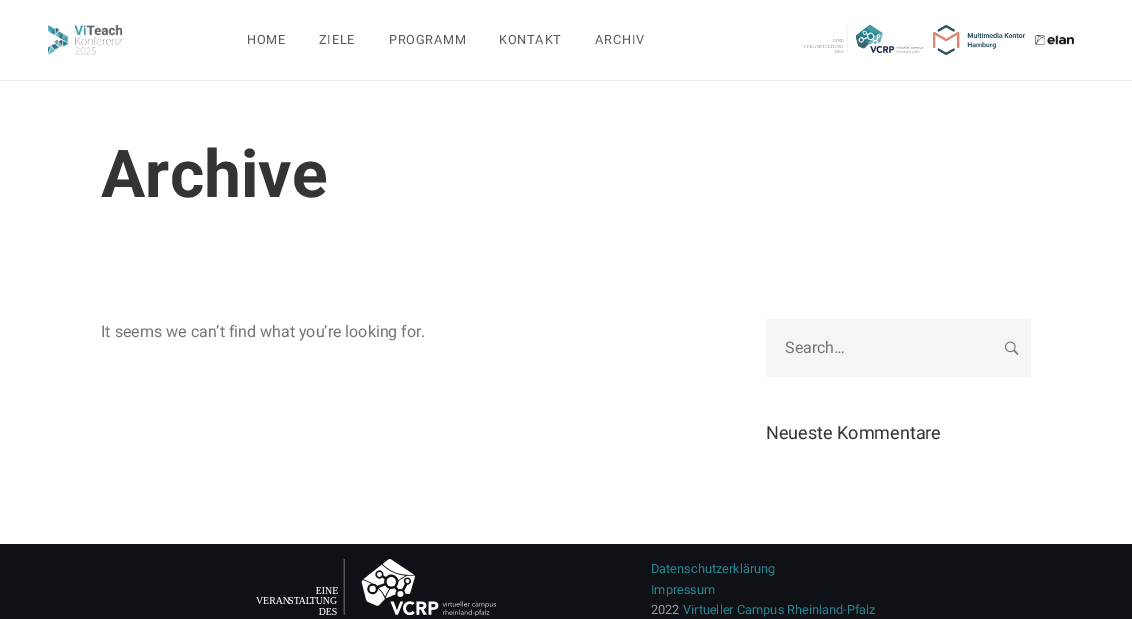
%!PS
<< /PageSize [1132 619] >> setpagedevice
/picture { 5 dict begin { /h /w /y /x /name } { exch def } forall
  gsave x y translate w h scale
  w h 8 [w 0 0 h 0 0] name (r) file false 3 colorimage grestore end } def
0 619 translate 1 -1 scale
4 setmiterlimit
1 setgray
0 0 1132 619 rectfill
0.922 setgray
0 80 1132 1 rectfill
(img1.rgb) 48 25 74 30 picture
/Roboto-Regular [12.75 0 0 -12.75 0 0] selectfont
0.357 setgray
247 44 moveto 0.75 0 (HOME) ashow
319 44 moveto 0.75 0 (ZIELE) ashow
389 44 moveto 0.75 0 (PROGRAMM) ashow
499 44 moveto 0.75 0 (KONTAKT) ashow
595 44 moveto 0.75 0 (ARCHIV) ashow
(img2.rgb) 803 25 120 29 picture
(img3.rgb) 933 25 92 30 picture
(img4.rgb) 1035 35 39 10 picture
/Roboto-Bold [66 0 0 -66 0 0] selectfont
0.204 setgray
101 197 moveto (Archive) show
/Roboto-Regular [16 0 0 -16 0 0] selectfont
0.463 setgray
101 337 moveto (It seems we can’t find what you’re looking for.) show
0.961 setgray
766 319 265 58 rectfill
0.463 setgray
785 353 moveto (Search…) show
(img5.rgb) 1005 341 14 14 picture
/Roboto-Regular [18 0 0 -18 0 0] selectfont
0.204 setgray
766 439 moveto (Neueste Kommentare) show
0.063 0.067 0.09 setrgbcolor
0 544 1132 75 rectfill
(img6.rgb) 256 559 240 58 picture
/Roboto-Regular [12.75 0 0 -12.75 0 0] selectfont
0.149 0.525 0.573 setrgbcolor
651 573 moveto (Datenschutzerklärung) show
651 594 moveto (Impressum) show
0.6 setgray
651 614 moveto (2022) show
0.149 0.525 0.573 setrgbcolor
683 614 moveto (Virtueller Campus Rheinland-Pfalz) show
showpage
